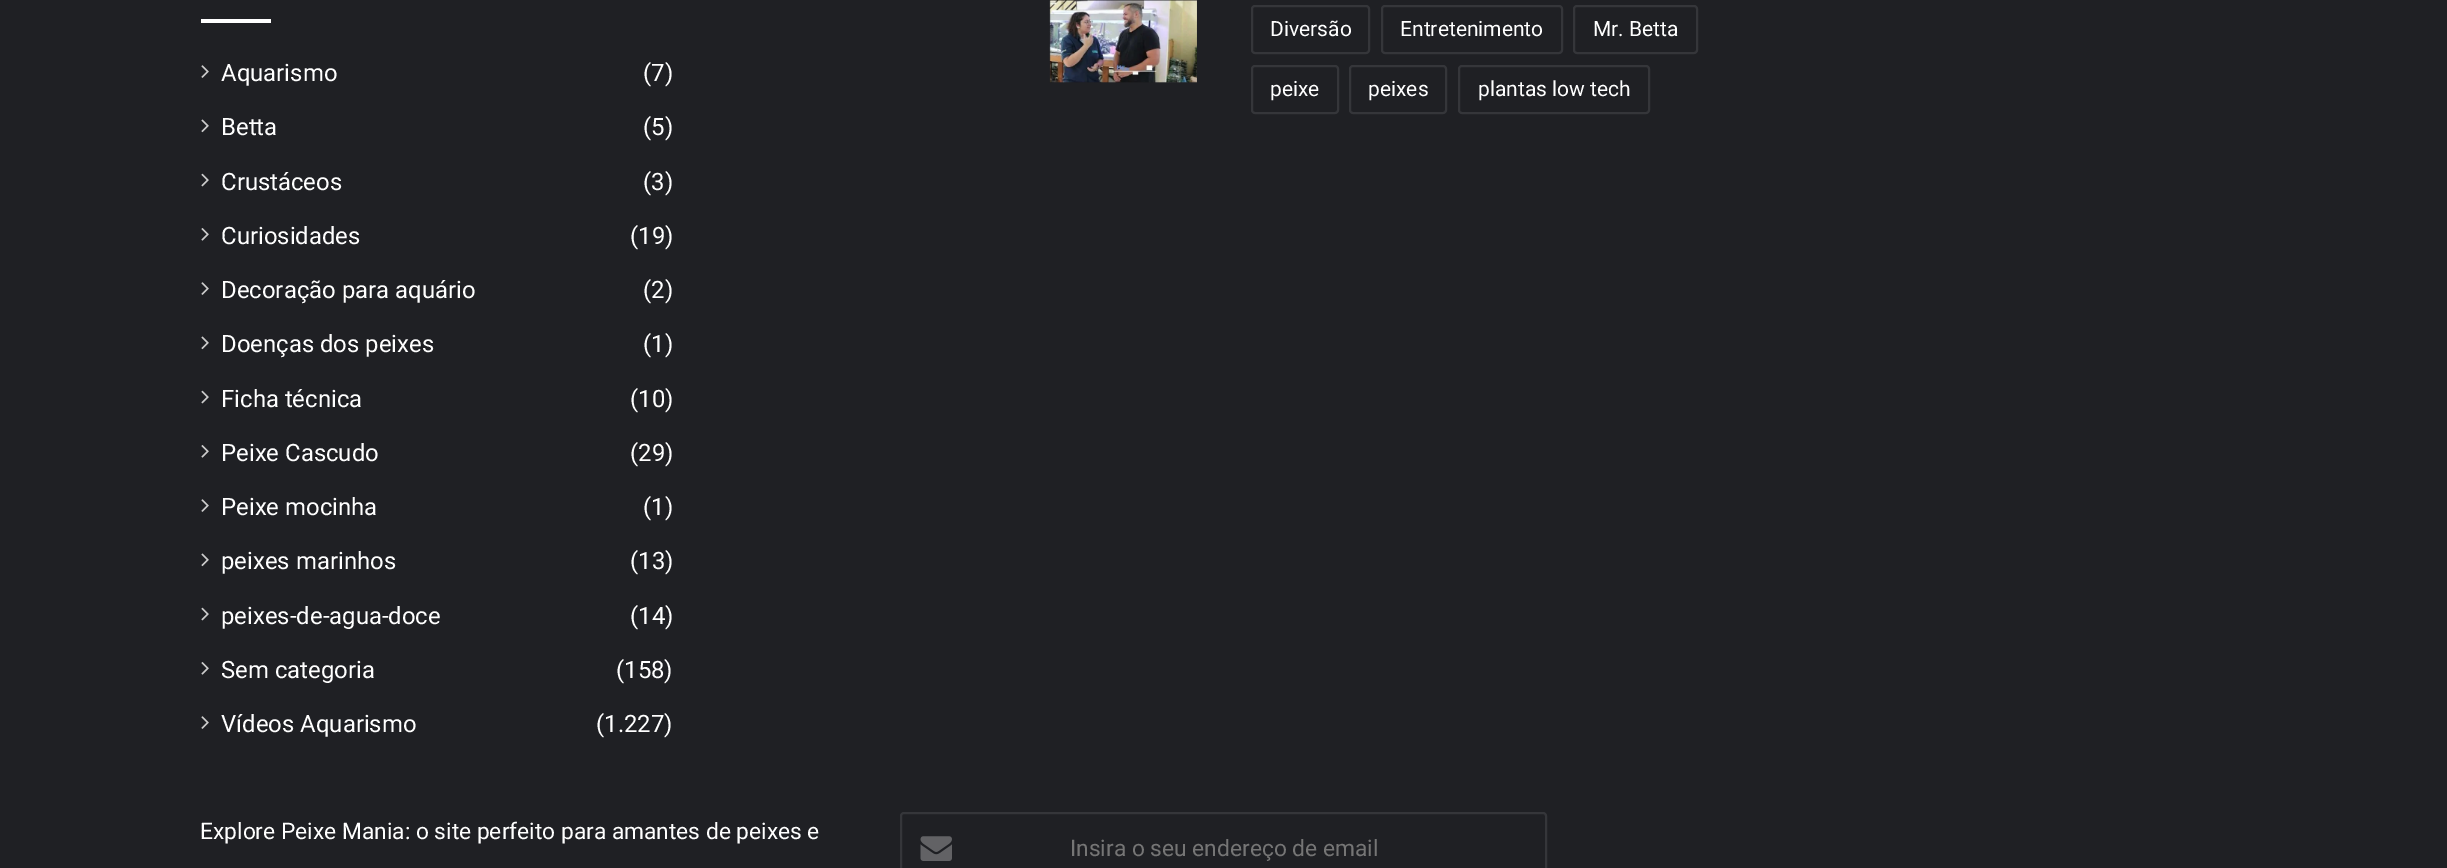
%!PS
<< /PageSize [2447 868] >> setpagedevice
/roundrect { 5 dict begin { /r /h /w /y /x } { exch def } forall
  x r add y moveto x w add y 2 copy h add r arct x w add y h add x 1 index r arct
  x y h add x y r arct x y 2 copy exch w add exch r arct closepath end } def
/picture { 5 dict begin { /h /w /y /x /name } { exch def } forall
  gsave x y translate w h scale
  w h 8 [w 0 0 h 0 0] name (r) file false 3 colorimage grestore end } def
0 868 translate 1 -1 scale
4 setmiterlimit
0.122 0.125 0.141 setrgbcolor
0 0 2447 868 rectfill
1 setgray
201 19 70 4 rectfill
(img1.rgb) 201 65 8 13 picture
/Roboto-Regular [23.9 0 0 -23.9 0 0] selectfont
221 81 moveto (Aquarismo) show
643 81 moveto (\(7\)) show
(img2.rgb) 201 119 8 14 picture
221 135 moveto (Betta) show
643 135 moveto (\(5\)) show
(img3.rgb) 201 173 8 14 picture
221 190 moveto (Crustáceos) show
643 190 moveto (\(3\)) show
(img4.rgb) 201 228 8 13 picture
221 244 moveto (Curiosidades) show
630 244 moveto (\(19\)) show
(img1.rgb) 201 282 8 13 picture
221 298 moveto (Decoração para aquário) show
643 298 moveto (\(2\)) show
(img2.rgb) 201 336 8 14 picture
221 352 moveto (Doenças dos peixes) show
643 352 moveto (\(1\)) show
(img3.rgb) 201 390 8 14 picture
221 407 moveto (Ficha técnica) show
630 407 moveto (\(10\)) show
(img4.rgb) 201 445 8 13 picture
221 461 moveto (Peixe Cascudo) show
630 461 moveto (\(29\)) show
(img1.rgb) 201 499 8 13 picture
221 515 moveto (Peixe mocinha) show
643 515 moveto (\(1\)) show
(img2.rgb) 201 553 8 14 picture
221 569 moveto (peixes marinhos) show
630 569 moveto (\(13\)) show
(img3.rgb) 201 607 8 14 picture
221 624 moveto (peixes-de-agua-doce) show
630 624 moveto (\(14\)) show
(img4.rgb) 201 662 8 13 picture
221 678 moveto (Sem categoria) show
616 678 moveto (\(158\)) show
(img1.rgb) 201 716 8 13 picture
221 732 moveto (Vídeos Aquarismo) show
596 732 moveto (\(1.227\)) show
(img5.rgb) 1049 0 148 83 picture
0.208 0.212 0.227 setrgbcolor
2 setlinewidth
1252 6 117 47 3 roundrect stroke
/Roboto-Regular [21 0 0 -21 0 0] selectfont
1 setgray
1270 36 moveto (Diversão) show
0.208 0.212 0.227 setrgbcolor
1382 6 180 47 3 roundrect stroke
1 setgray
1400 36 moveto (Entretenimento) show
0.208 0.212 0.227 setrgbcolor
1574 6 123 47 3 roundrect stroke
1 setgray
1593 36 moveto (Mr. Betta) show
0.208 0.212 0.227 setrgbcolor
1252 66 86 47 3 roundrect stroke
1 setgray
1270 96 moveto (peixe) show
0.208 0.212 0.227 setrgbcolor
1350 66 96 47 3 roundrect stroke
1 setgray
1368 96 moveto (peixes) show
0.208 0.212 0.227 setrgbcolor
1459 66 190 47 3 roundrect stroke
1 setgray
1478 96 moveto (plantas low tech) show
/Roboto-Regular [22.75 0 0 -22.75 0 0] selectfont
200 839 moveto (Explore Peixe Mania: o site perfeito para amantes de peixes e) show
0.208 0.212 0.227 setrgbcolor
901 813 645 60 3 roundrect stroke
(img6.rgb) 920 836 32 25 picture
0.459 setgray
1070 856 moveto (Insira o seu endereço de email) show
showpage
